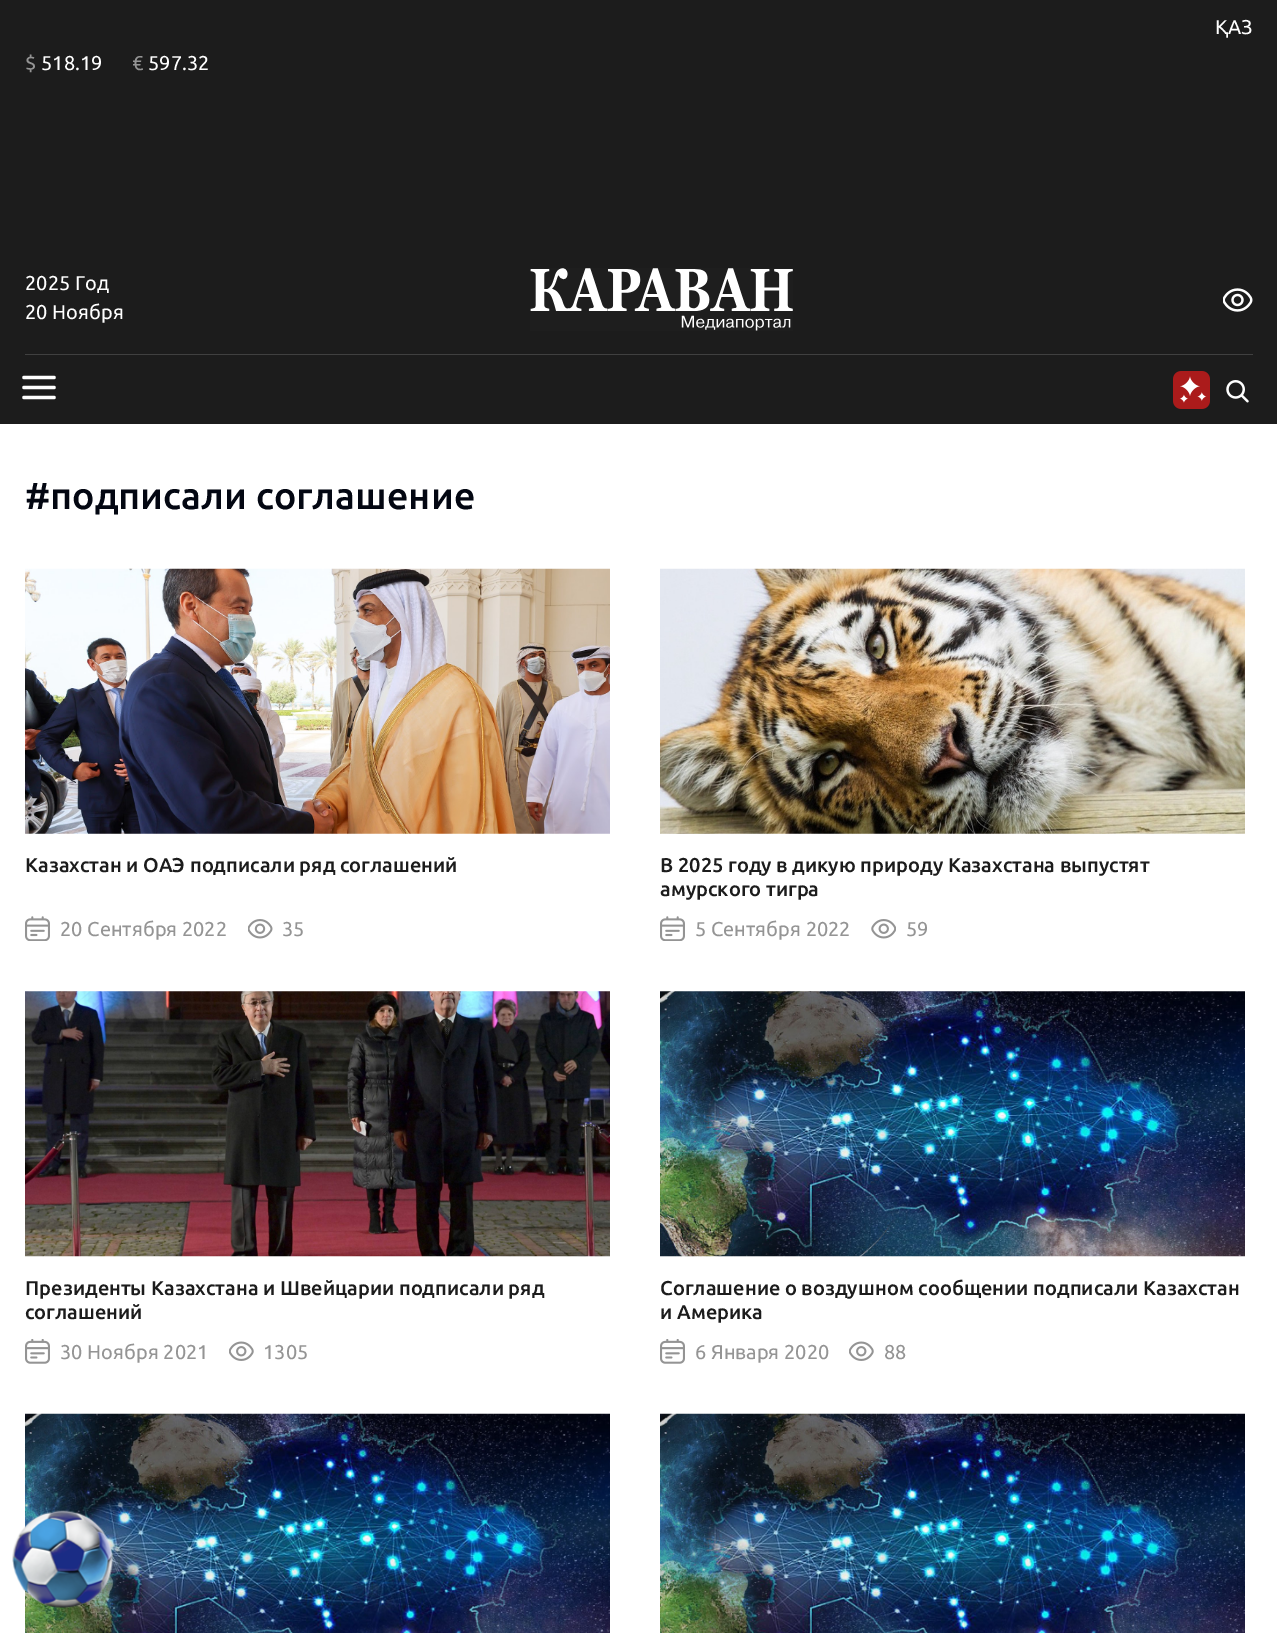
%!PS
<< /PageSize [1277 1633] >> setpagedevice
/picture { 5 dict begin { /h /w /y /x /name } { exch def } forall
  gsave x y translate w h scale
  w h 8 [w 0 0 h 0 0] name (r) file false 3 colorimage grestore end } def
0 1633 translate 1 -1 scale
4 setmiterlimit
1 setgray
0 0 1277 1633 rectfill
0.11 setgray
0 0 1277 424 rectfill
/Ubuntu-Regular [20 0 0 -20 0 0] selectfont
1 setgray
1215 34 moveto (ҚАЗ) show
0.58 setgray
25 70 moveto ($) show
1 setgray
41 70 moveto (518.19) show
0.58 setgray
132 70 moveto (€) show
1 setgray
148 70 moveto (597.32) show
25 290 moveto (2025 Год) show
25 319 moveto (20 Ноября) show
(img1.rgb) 530 268 263 63 picture
(img2.rgb) 1223 288 30 24 picture
0.251 setgray
25 354 1228 1 rectfill
1 setgray
3.3 setlinewidth
1 setlinecap
1 setlinejoin
newpath 24 387.5 moveto 54 387.5 lineto 24 377.5 moveto 54 377.5 lineto 24 397.5 moveto 54 397.5 lineto stroke
(img3.rgb) 1173 371 37 38 picture
(img4.rgb) 1226 380 23 23 picture
/Ubuntu-Medium [37.5 0 0 -37.5 0 0] selectfont
0.012 0.027 0.071 setrgbcolor
25 509 moveto (#подписали соглашение) show
(img5.rgb) 25 568 585 266 picture
/Ubuntu-Medium [20 0 0 -20 0 0] selectfont
0.11 setgray
25 872 moveto (Казахстан и ОАЭ подписали ряд соглашений) show
(img6.rgb) 25 916 25 25 picture
/Ubuntu-Regular [20 0 0 -20 0 0] selectfont
0.58 setgray
60 936 moveto (20 Сентября 2022) show
(img7.rgb) 248 919 25 20 picture
282 936 moveto (35) show
(img8.rgb) 660 568 585 266 picture
/Ubuntu-Medium [20 0 0 -20 0 0] selectfont
0.11 setgray
660 872 moveto (В 2025 году в дикую природу Казахстана выпустят) show
660 896 moveto (амурского тигра) show
(img6.rgb) 660 916 25 25 picture
/Ubuntu-Regular [20 0 0 -20 0 0] selectfont
0.58 setgray
695 936 moveto (5 Сентября 2022) show
(img9.rgb) 871 919 25 20 picture
906 936 moveto (59) show
(img10.rgb) 25 991 585 266 picture
/Ubuntu-Medium [20 0 0 -20 0 0] selectfont
0.11 setgray
25 1295 moveto (Президенты Казахстана и Швейцарии подписали ряд) show
25 1319 moveto (соглашений) show
(img11.rgb) 25 1339 25 25 picture
/Ubuntu-Regular [20 0 0 -20 0 0] selectfont
0.58 setgray
60 1359 moveto (30 Ноября 2021) show
(img12.rgb) 229 1341 25 20 picture
263 1359 moveto (1305) show
(img13.rgb) 660 991 585 266 picture
/Ubuntu-Medium [20 0 0 -20 0 0] selectfont
0.11 setgray
660 1295 moveto (Соглашение о воздушном сообщении подписали Казахстан) show
660 1319 moveto (и Америка) show
(img11.rgb) 660 1339 25 25 picture
/Ubuntu-Regular [20 0 0 -20 0 0] selectfont
0.58 setgray
695 1359 moveto (6 Января 2020) show
(img12.rgb) 849 1341 25 20 picture
884 1359 moveto (88) show
(img14.rgb) 25 1413 585 220 picture
(img15.rgb) 660 1413 585 220 picture
(img16.rgb) 12 1510 101 98 picture
showpage
